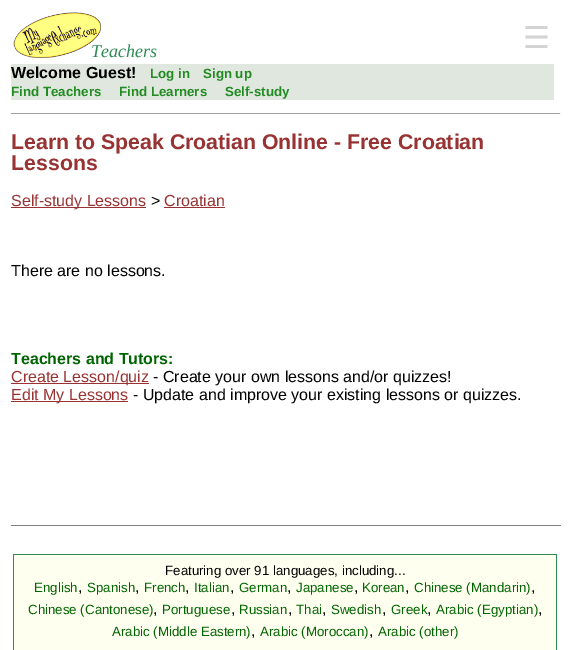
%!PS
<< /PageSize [570 650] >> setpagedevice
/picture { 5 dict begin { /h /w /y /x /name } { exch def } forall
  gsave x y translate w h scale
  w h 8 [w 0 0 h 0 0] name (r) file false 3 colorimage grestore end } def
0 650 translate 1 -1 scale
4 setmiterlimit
1 setgray
0 0 570 650 rectfill
/DejaVuSans-Regular [30 0 0 -30 0 0] selectfont
0.827 setgray
523 48 moveto (☰) show
(img1.rgb) 13 12 88 46 picture
/LiberationSerif-Italic [18 0 0 -18 0 0] selectfont
0.18 0.545 0.341 setrgbcolor
91 57 moveto (Teachers) show
0.875 0.906 0.875 setrgbcolor
11 64 543 36 rectfill
/LiberationSans-Bold [16 0 0 -16 0 0] selectfont
0 setgray
11 78 moveto (Welcome Guest!) show
/LiberationSans-Bold [13.3 0 0 -13.3 0 0] selectfont
0.133 0.545 0.133 setrgbcolor
150 78 moveto (Log in) show
203 78 moveto (Sign up) show
11 96 moveto (Find Teachers) show
119 96 moveto (Find Learners) show
225 96 moveto (Self-study) show
0.624 setgray
11 113 550 1 rectfill
0.933 setgray
560 113 1 1 rectfill
/LiberationSans-Bold [21.3 0 0 -21.3 0 0] selectfont
0.6 0.2 0.2 setrgbcolor
11 149 moveto (Learn to Speak Croatian Online - Free Croatian) show
11 170 moveto (Lessons) show
11 207 135 1 rectfill
/LiberationSans-Regular [16 0 0 -16 0 0] selectfont
11 206 moveto (Self-study Lessons) show
0 setgray
151 206 moveto (>) show
0.6 0.2 0.2 setrgbcolor
164 206 moveto (Croatian) show
164 207 61 1 rectfill
0 setgray
11 276 moveto (There are no lessons.) show
/LiberationSans-Bold [16 0 0 -16 0 0] selectfont
0 0.392 0 setrgbcolor
11 364 moveto (Teachers and Tutors:) show
0.6 0.2 0.2 setrgbcolor
11 383 138 1 rectfill
/LiberationSans-Regular [16 0 0 -16 0 0] selectfont
11 382 moveto (Create Lesson/quiz) show
0 setgray
153 382 moveto (- Create your own lessons and/or quizzes!) show
0.6 0.2 0.2 setrgbcolor
11 401 117 1 rectfill
11 400 moveto (Edit My Lessons) show
0 setgray
133 400 moveto (- Update and improve your existing lessons or quizzes.) show
0.502 setgray
11 525 550 1 rectfill
0.18 0.545 0.341 setrgbcolor
13 554 544 96 rectfill
1 1 0.941 setrgbcolor
14 555 542 95 rectfill
/LiberationSans-Regular [13.3 0 0 -13.3 0 0] selectfont
0 setgray
165 575 moveto (Featuring over 91 languages, including...) show
0 0.392 0 setrgbcolor
34 592 moveto (English) show
/LiberationSans-Regular [16 0 0 -16 0 0] selectfont
0 setgray
78 592 moveto (,) show
/LiberationSans-Regular [13.3 0 0 -13.3 0 0] selectfont
0 0.392 0 setrgbcolor
87 592 moveto (Spanish) show
/LiberationSans-Regular [16 0 0 -16 0 0] selectfont
0 setgray
135 592 moveto (,) show
/LiberationSans-Regular [13.3 0 0 -13.3 0 0] selectfont
0 0.392 0 setrgbcolor
144 592 moveto (French) show
/LiberationSans-Regular [16 0 0 -16 0 0] selectfont
0 setgray
185 592 moveto (,) show
/LiberationSans-Regular [13.3 0 0 -13.3 0 0] selectfont
0 0.392 0 setrgbcolor
194 592 moveto (Italian) show
/LiberationSans-Regular [16 0 0 -16 0 0] selectfont
0 setgray
230 592 moveto (,) show
/LiberationSans-Regular [13.3 0 0 -13.3 0 0] selectfont
0 0.392 0 setrgbcolor
239 592 moveto (German) show
/LiberationSans-Regular [16 0 0 -16 0 0] selectfont
0 setgray
287 592 moveto (,) show
/LiberationSans-Regular [13.3 0 0 -13.3 0 0] selectfont
0 0.392 0 setrgbcolor
296 592 moveto (Japanese) show
/LiberationSans-Regular [16 0 0 -16 0 0] selectfont
0 setgray
354 592 moveto (,) show
/LiberationSans-Regular [13.3 0 0 -13.3 0 0] selectfont
0 0.392 0 setrgbcolor
362 592 moveto (Korean) show
/LiberationSans-Regular [16 0 0 -16 0 0] selectfont
0 setgray
405 592 moveto (,) show
/LiberationSans-Regular [13.3 0 0 -13.3 0 0] selectfont
0 0.392 0 setrgbcolor
414 592 moveto (Chinese \(Mandarin\)) show
/LiberationSans-Regular [16 0 0 -16 0 0] selectfont
0 setgray
531 592 moveto (,) show
/LiberationSans-Regular [13.3 0 0 -13.3 0 0] selectfont
0 0.392 0 setrgbcolor
28 614 moveto (Chinese \(Cantonese\)) show
/LiberationSans-Regular [16 0 0 -16 0 0] selectfont
0 setgray
153 614 moveto (,) show
/LiberationSans-Regular [13.3 0 0 -13.3 0 0] selectfont
0 0.392 0 setrgbcolor
162 614 moveto (Portuguese) show
/LiberationSans-Regular [16 0 0 -16 0 0] selectfont
0 setgray
231 614 moveto (,) show
/LiberationSans-Regular [13.3 0 0 -13.3 0 0] selectfont
0 0.392 0 setrgbcolor
239 614 moveto (Russian) show
/LiberationSans-Regular [16 0 0 -16 0 0] selectfont
0 setgray
288 614 moveto (,) show
/LiberationSans-Regular [13.3 0 0 -13.3 0 0] selectfont
0 0.392 0 setrgbcolor
296 614 moveto (Thai) show
/LiberationSans-Regular [16 0 0 -16 0 0] selectfont
0 setgray
322 614 moveto (,) show
/LiberationSans-Regular [13.3 0 0 -13.3 0 0] selectfont
0 0.392 0 setrgbcolor
331 614 moveto (Swedish) show
/LiberationSans-Regular [16 0 0 -16 0 0] selectfont
0 setgray
382 614 moveto (,) show
/LiberationSans-Regular [13.3 0 0 -13.3 0 0] selectfont
0 0.392 0 setrgbcolor
391 614 moveto (Greek) show
/LiberationSans-Regular [16 0 0 -16 0 0] selectfont
0 setgray
427 614 moveto (,) show
/LiberationSans-Regular [13.3 0 0 -13.3 0 0] selectfont
0 0.392 0 setrgbcolor
436 614 moveto (Arabic \(Egyptian\)) show
/LiberationSans-Regular [16 0 0 -16 0 0] selectfont
0 setgray
538 614 moveto (,) show
/LiberationSans-Regular [13.3 0 0 -13.3 0 0] selectfont
0 0.392 0 setrgbcolor
112 636 moveto (Arabic \(Middle Eastern\)) show
/LiberationSans-Regular [16 0 0 -16 0 0] selectfont
0 setgray
251 636 moveto (,) show
/LiberationSans-Regular [13.3 0 0 -13.3 0 0] selectfont
0 0.392 0 setrgbcolor
260 636 moveto (Arabic \(Moroccan\)) show
/LiberationSans-Regular [16 0 0 -16 0 0] selectfont
0 setgray
369 636 moveto (,) show
/LiberationSans-Regular [13.3 0 0 -13.3 0 0] selectfont
0 0.392 0 setrgbcolor
378 636 moveto (Arabic \(other\)) show
showpage
